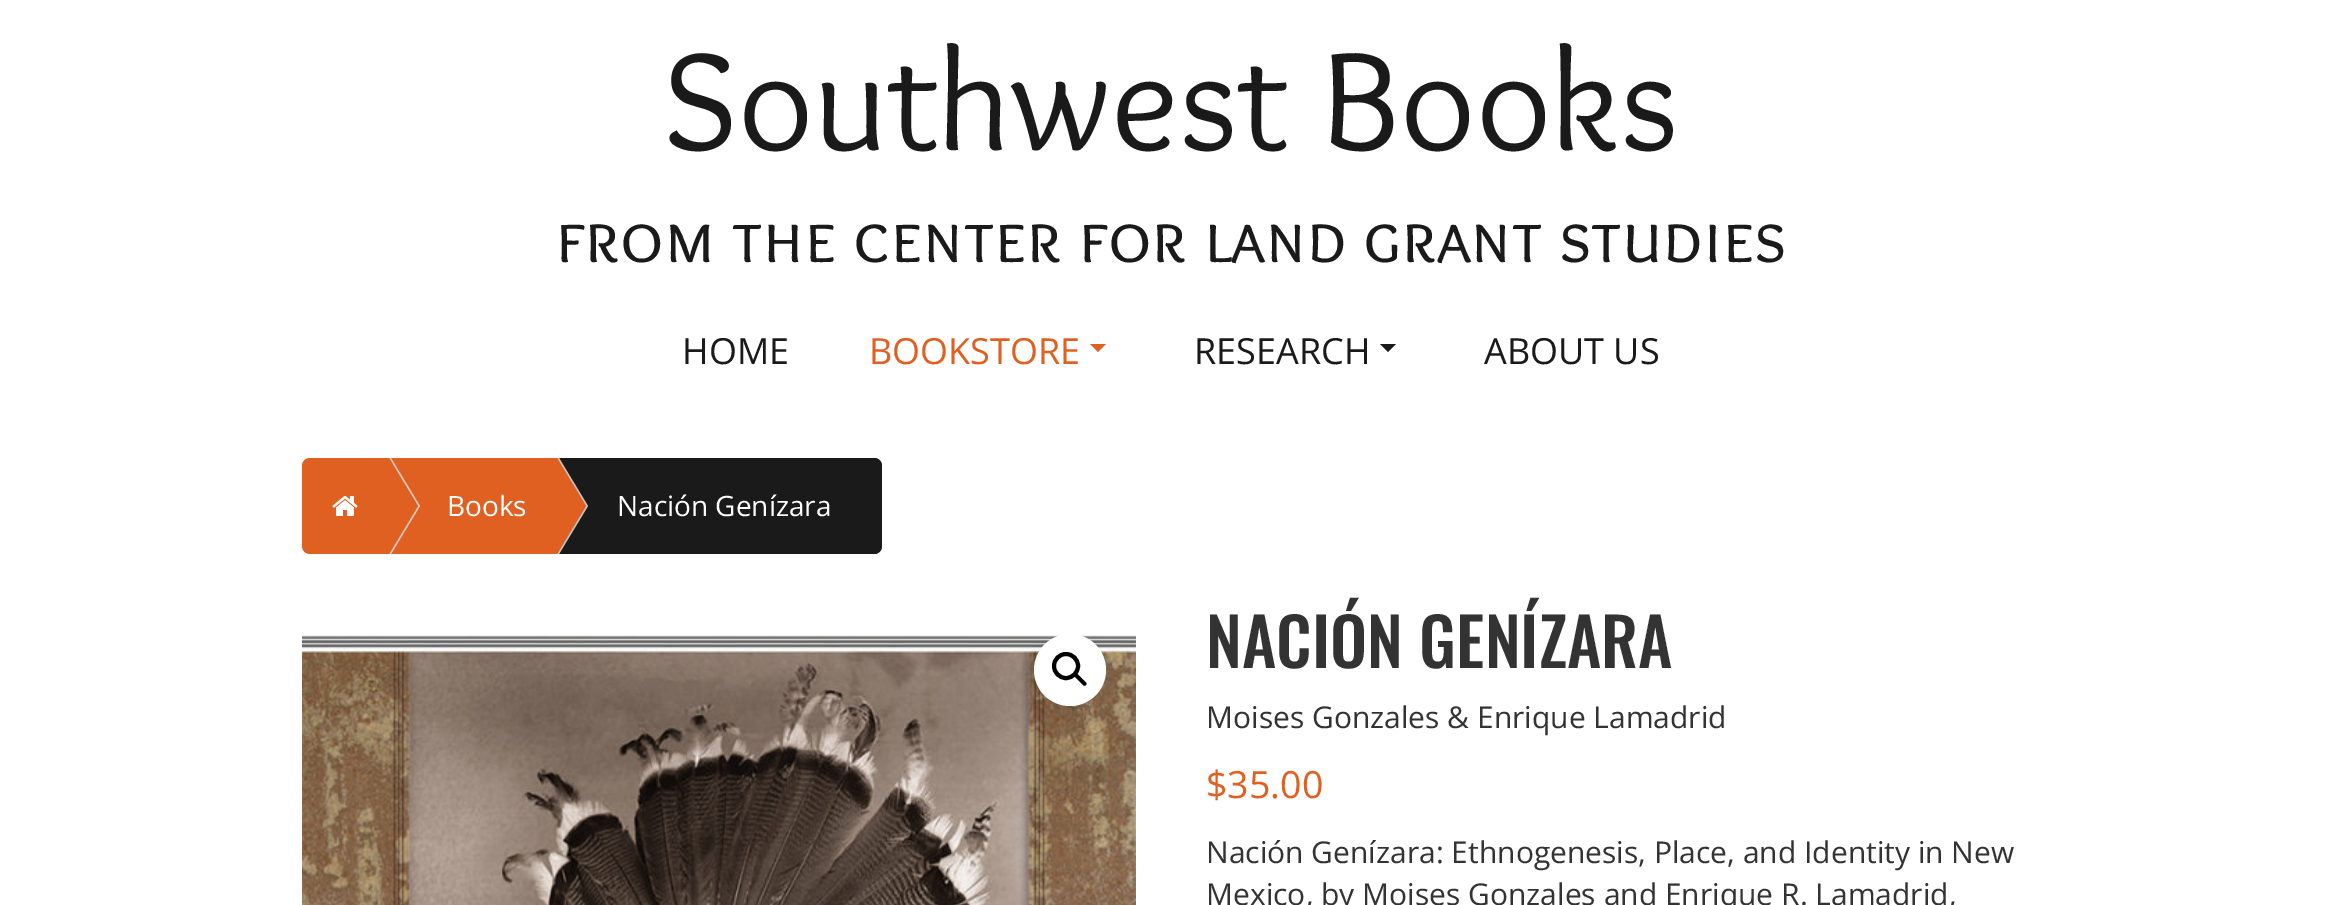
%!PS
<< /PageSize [2341 905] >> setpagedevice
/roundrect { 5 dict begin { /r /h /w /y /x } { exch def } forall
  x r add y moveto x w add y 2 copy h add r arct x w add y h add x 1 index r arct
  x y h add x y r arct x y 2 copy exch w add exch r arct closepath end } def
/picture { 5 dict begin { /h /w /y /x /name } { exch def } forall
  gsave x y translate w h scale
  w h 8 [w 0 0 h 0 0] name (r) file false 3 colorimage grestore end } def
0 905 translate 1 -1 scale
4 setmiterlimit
1 setgray
0 0 2341 905 rectfill
/Overlock-Regular [144 0 0 -144 0 0] selectfont
0.102 setgray
663 150 moveto (Southwest Books) show
/OverlockSC-Regular [72 0 0 -72 0 0] selectfont
555 262 moveto (from the center for land grant studies) show
/OpenSans-Regular [36 0 0 -36 0 0] selectfont
682 364 moveto (HOME) show
0.875 0.376 0.125 setrgbcolor
869 364 moveto (BOOKSTORE) show
newpath 1090 344 moveto 1106 344 lineto 1098 352 lineto closepath fill
0.102 setgray
1194 364 moveto (RESEARCH) show
newpath 1380 344 moveto 1396 344 lineto 1388 352 lineto closepath fill
1484 364 moveto (ABOUT US) show
0.875 0.376 0.125 setrgbcolor
302 458 580 96 8 roundrect fill
0.835 0.784 0.761 setrgbcolor
newpath 391 458 moveto 420 506 lineto 391 554 lineto 360 554 lineto 360 458 lineto closepath fill
0.875 0.376 0.125 setrgbcolor
newpath 389 458 moveto 418 506 lineto 389 554 lineto 358 554 lineto 358 458 lineto closepath fill
(img1.rgb) 332 496 26 20 picture
0.102 setgray
newpath 526 458 moveto 874 458 lineto 878.5 458 882 461.5 882 466 curveto 882 546 lineto 882 550.5 878.5 554 874 554 curveto 526 554 lineto closepath fill
0.757 setgray
newpath 559 458 moveto 588 506 lineto 559 554 lineto 528 554 lineto 528 458 lineto closepath fill
0.875 0.376 0.125 setrgbcolor
newpath 557 458 moveto 586 506 lineto 557 554 lineto 526 554 lineto 526 458 lineto closepath fill
/OpenSans-Regular [28 0 0 -28 0 0] selectfont
1 setgray
447 516 moveto (Books) show
617 516 moveto (Nación Genízara) show
(img2.rgb) 302 635 834 270 picture
newpath 1070 670 36 0 360 arc closepath fill
0 setgray
4 setlinewidth
newpath 1066 666 12 0 360 arc closepath stroke
newpath 1074.5 674 moveto 1075.5 673 1076.5 673 1077.5 674 curveto 1086 682.5 lineto 1086.5 683 1086.5 684.5 1086 685 curveto 1085 686 1084 686 1083 685 curveto 1074.5 676.5 lineto 1073.5 676 1073.5 674.5 1074.5 674 curveto closepath fill
/Oswald-Medium [66 0 0 -66 0 0] selectfont
0.2 setgray
1206 668 moveto (NACIÓN GENÍZARA) show
/OpenSans-Regular [30 0 0 -30 0 0] selectfont
1206 728 moveto (Moises Gonzales & Enrique Lamadrid) show
/OpenSans-Regular [37.5 0 0 -37.5 0 0] selectfont
0.875 0.376 0.125 setrgbcolor
1206 798 moveto ($35.00) show
/OpenSans-Regular [30 0 0 -30 0 0] selectfont
0.2 setgray
1206 863 moveto (Nación Genízara: Ethnogenesis, Place, and Identity in New) show
1206 905 moveto (Mexico, by Moises Gonzales and Enrique R. Lamadrid,) show
showpage
